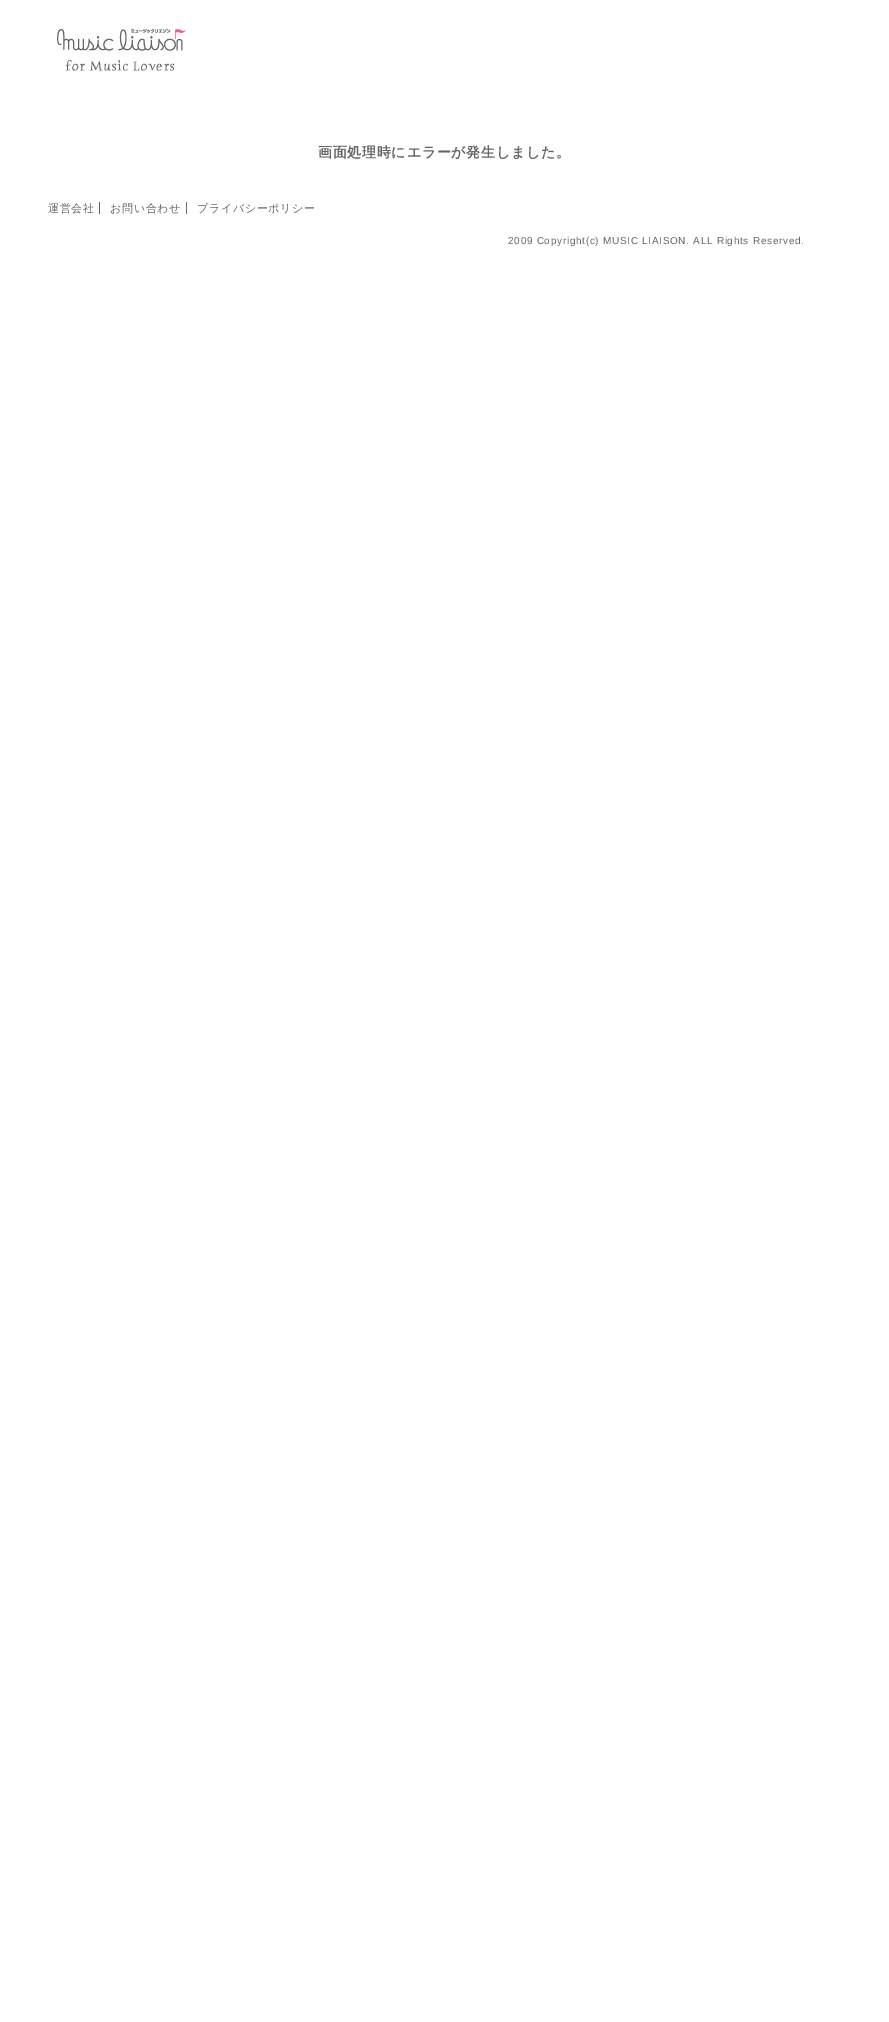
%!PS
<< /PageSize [889 2022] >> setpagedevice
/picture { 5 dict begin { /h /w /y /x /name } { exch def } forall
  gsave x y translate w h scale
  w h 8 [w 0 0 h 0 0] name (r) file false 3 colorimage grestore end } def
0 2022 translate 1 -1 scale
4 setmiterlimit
1 setgray
0 0 889 2022 rectfill
(img1.rgb) 57 28 129 43 picture
/WenQuanYiZenHei-Bold [14 0 0 -14 0 0] selectfont
0.4 0.396 0.4 setrgbcolor
318 157 moveto 0.7 0 (画面処理時にエラーが発生しました。) ashow
/WenQuanYiZenHei-Medium [11 0 0 -11 0 0] selectfont
48 212 moveto 0.7 0 (運営会社) ashow
0.4 setgray
99 202 1 12 rectfill
0.4 0.396 0.4 setrgbcolor
110 212 moveto 0.7 0 (お問い合わせ) ashow
0.4 setgray
186 202 1 12 rectfill
0.4 0.396 0.4 setrgbcolor
197 212 moveto 0.7 0 (プライバシーポリシー) ashow
/LiberationSans-Regular [10 0 0 -10 0 0] selectfont
508 244 moveto 0.7 0 (2009 Copyright\(c\) MUSIC LIAISON. ALL Rights Reserved.) ashow
showpage
